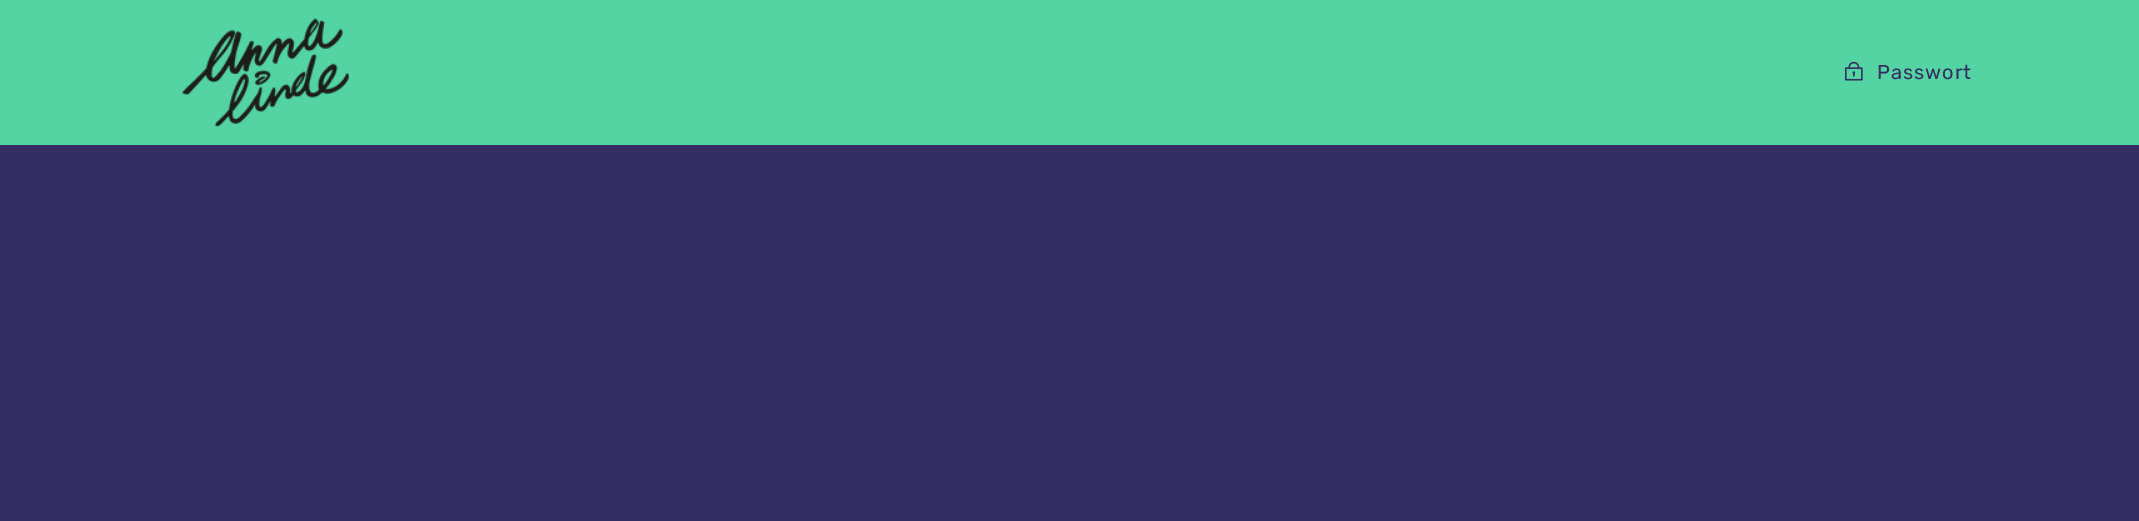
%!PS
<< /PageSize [2139 521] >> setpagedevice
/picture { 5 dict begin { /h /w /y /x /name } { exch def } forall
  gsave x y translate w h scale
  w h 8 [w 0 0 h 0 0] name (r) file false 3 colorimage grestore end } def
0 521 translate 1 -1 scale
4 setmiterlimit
0.204 0.176 0.38 setrgbcolor
0 0 2139 521 rectfill
0.329 0.831 0.639 setrgbcolor
0 0 2139 145 rectfill
(img1.rgb) 182 18 167 109 picture
(img2.rgb) 1845 61 18 20 picture
/Rubik-Regular [20 0 0 -20 0 0] selectfont
0.204 0.176 0.38 setrgbcolor
1877 79 moveto 1 0 (Passwort) ashow
showpage
